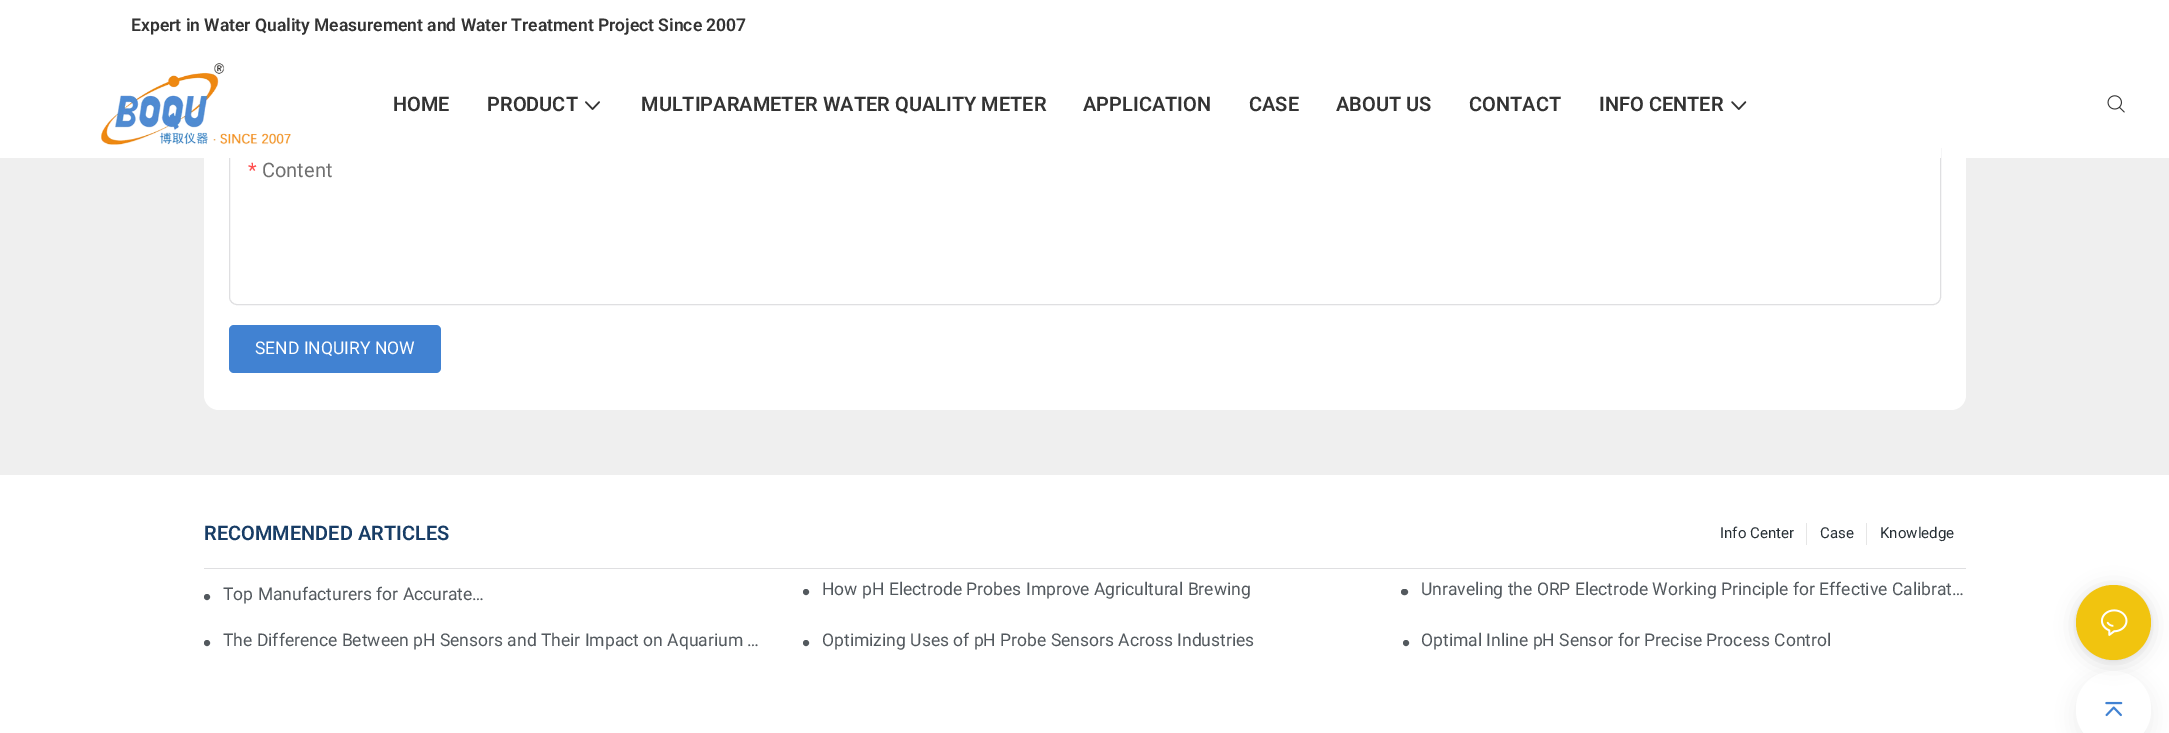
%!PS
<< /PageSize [2169 733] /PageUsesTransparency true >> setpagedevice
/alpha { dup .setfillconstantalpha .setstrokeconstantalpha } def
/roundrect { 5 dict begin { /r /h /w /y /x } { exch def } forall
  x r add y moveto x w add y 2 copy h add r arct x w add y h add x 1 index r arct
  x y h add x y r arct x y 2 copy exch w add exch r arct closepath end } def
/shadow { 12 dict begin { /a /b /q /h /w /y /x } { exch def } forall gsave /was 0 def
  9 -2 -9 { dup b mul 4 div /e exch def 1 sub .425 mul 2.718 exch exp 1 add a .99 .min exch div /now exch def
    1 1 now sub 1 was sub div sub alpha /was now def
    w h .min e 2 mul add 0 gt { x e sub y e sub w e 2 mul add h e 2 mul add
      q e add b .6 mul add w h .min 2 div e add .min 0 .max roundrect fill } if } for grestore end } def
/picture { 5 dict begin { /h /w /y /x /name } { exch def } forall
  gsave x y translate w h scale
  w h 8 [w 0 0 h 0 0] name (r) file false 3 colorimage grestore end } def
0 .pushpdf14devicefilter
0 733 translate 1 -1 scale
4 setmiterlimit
1 setgray
0 0 2169 733 rectfill
0.937 setgray
0 158 2169 317 rectfill
1 setgray
204 -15 1762 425 15 roundrect fill
0.875 0.875 0.882 setrgbcolor
229.5 141.5 1711 163 7.5 roundrect stroke
1 setgray
229 141 1712 17 rectfill
/Roboto-SemiBold [17.5 0 0 -17.5 0 0] selectfont
0.2 setgray
131 31 moveto (Expert in Water Quality Measurement and Water Treatment Project Since 2007) show
(img1.rgb) 101 63 190 82 picture
/Roboto-SemiBold [20 0 0 -20 0 0] selectfont
393 111 moveto (HOME) show
487 111 moveto (PRODUCT) show
(img2.rgb) 585 101 15 9 picture
641 111 moveto (MULTIPARAMETER WATER QUALITY METER) show
1083 111 moveto (APPLICATION) show
1249 111 moveto (CASE) show
1336 111 moveto (ABOUT US) show
1469 111 moveto (CONTACT) show
1599 111 moveto (INFO CENTER) show
(img3.rgb) 1731 101 16 9 picture
(img4.rgb) 2107 95 18 18 picture
/Roboto-Regular [20 0 0 -20 0 0] selectfont
1 0.302 0.302 setrgbcolor
248 177 moveto (*) show
0.439 setgray
262 177 moveto (Content) show
0.255 0.51 0.824 setrgbcolor
229 325 212 48 5 roundrect fill
/Roboto-Regular [17.5 0 0 -17.5 0 0] selectfont
1 setgray
255 354 moveto (SEND INQUIRY NOW) show
0.875 0.875 0.882 setrgbcolor
204 568 1762 1 rectfill
/Roboto-SemiBold [20 0 0 -20 0 0] selectfont
0.094 0.239 0.4 setrgbcolor
204 540 moveto (RECOMMENDED ARTICLES) show
/Roboto-Regular [15 0 0 -15 0 0] selectfont
0.157 0.188 0.212 setrgbcolor
1720 538 moveto (Info Center) show
0.902 setgray
1806 523 1 22 rectfill
0.157 0.188 0.212 setrgbcolor
1820 538 moveto (Case) show
0.902 setgray
1866 523 1 22 rectfill
0.157 0.188 0.212 setrgbcolor
1880 538 moveto (Knowledge) show
0.325 0.349 0.369 setrgbcolor
3 setlinewidth
newpath 207 597 1.5 0 360 arc closepath stroke
/Roboto-Regular [17.5 0 0 -17.5 0 0] selectfont
223 600 moveto (Top Manufacturers for Accurate…) show
newpath 806 592 1.5 0 360 arc closepath stroke
822 595 moveto (How pH Electrode Probes Improve Agricultural Brewing) show
1402.5 590.5 4 3 1.5 roundrect stroke
1421 595 moveto (Unraveling the ORP Electrode Working Principle for Effective Calibrat…) show
newpath 207 643 1.5 0 360 arc closepath stroke
223 646 moveto (The Difference Between pH Sensors and Their Impact on Aquarium …) show
newpath 806 643 1.5 0 360 arc closepath stroke
822 646 moveto (Optimizing Uses of pH Probe Sensors Across Industries) show
newpath 1406 643 1.5 0 360 arc closepath stroke
1421 646 moveto (Optimal Inline pH Sensor for Precise Process Control) show
0.157 0.184 0.212 setrgbcolor
2076 678 75 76 37.5 9.5 0.08 shadow
1 setgray
2076 671 75 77 37.5 roundrect fill
0 setgray
2076 588 75 75 37.5 10 0.12 shadow
2076 586 75 75 37.5 2.5 0.06 shadow
0.945 0.769 0.059 setrgbcolor
newpath 2113.5 622.5 37.5 0 360 arc closepath fill
(img5.rgb) 2100 609 28 27 picture
(img6.rgb) 2105 701 18 16 picture
.poppdf14devicefilter showpage
